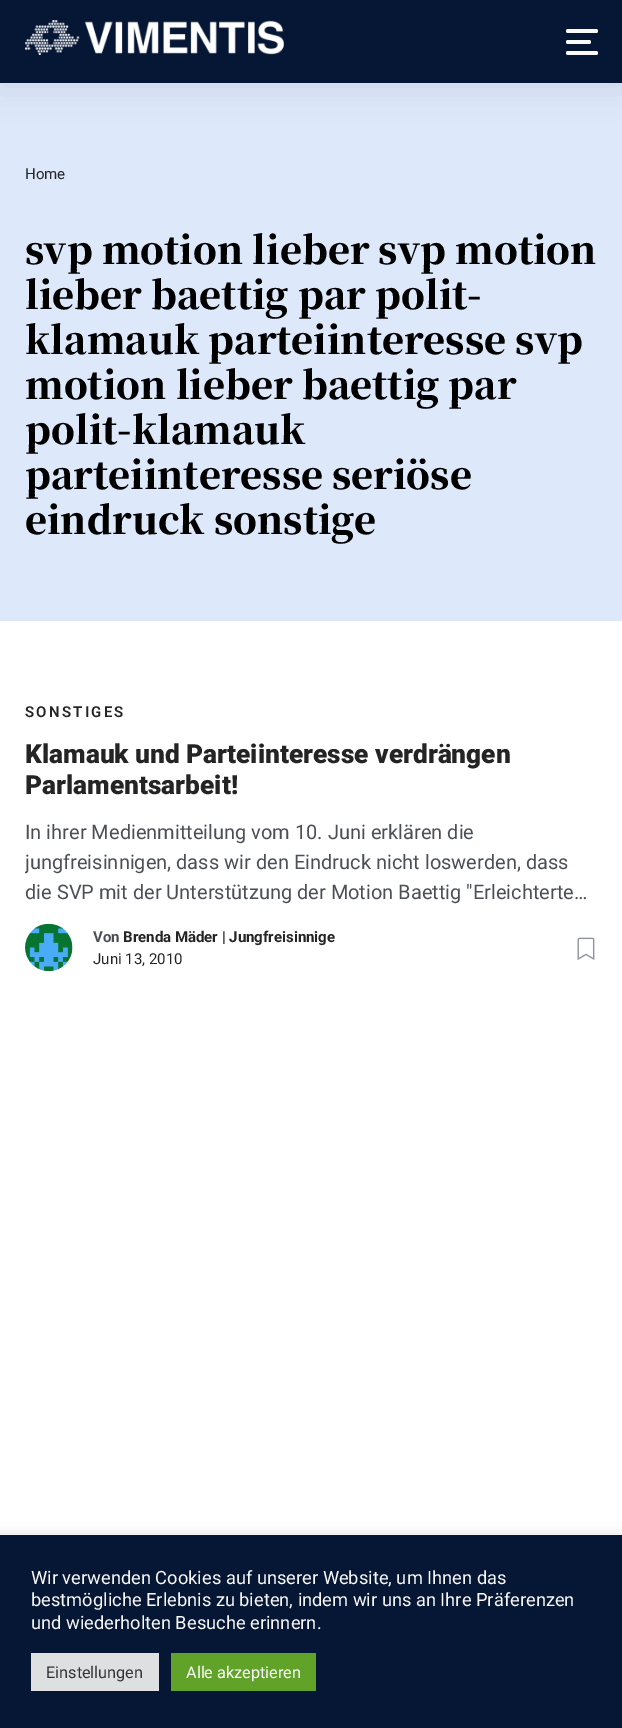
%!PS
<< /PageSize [622 1728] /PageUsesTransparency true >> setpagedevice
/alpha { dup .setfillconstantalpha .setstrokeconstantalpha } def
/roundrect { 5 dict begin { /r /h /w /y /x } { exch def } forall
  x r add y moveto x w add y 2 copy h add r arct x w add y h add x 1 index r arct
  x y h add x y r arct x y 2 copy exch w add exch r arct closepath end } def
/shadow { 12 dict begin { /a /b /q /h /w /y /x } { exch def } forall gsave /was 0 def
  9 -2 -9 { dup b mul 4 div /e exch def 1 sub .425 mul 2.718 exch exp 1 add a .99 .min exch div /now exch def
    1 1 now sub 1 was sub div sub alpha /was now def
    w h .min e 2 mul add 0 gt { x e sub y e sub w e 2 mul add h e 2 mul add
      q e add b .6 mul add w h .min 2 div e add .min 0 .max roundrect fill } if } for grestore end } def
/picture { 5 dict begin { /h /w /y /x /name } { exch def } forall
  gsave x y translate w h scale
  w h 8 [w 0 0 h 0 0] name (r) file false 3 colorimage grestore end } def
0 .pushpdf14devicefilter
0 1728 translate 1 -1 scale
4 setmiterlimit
1 setgray
0 0 622 1728 rectfill
0.867 0.91 0.984 setrgbcolor
0 83 622 538 rectfill
0 setgray
0 0 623 83 0 19 0.1 shadow
0.024 0.09 0.208 setrgbcolor
0 0 622 83 rectfill
(img1.rgb) 25 20 259 35 picture
0.98 setgray
566 29 32 4 2 roundrect fill
566 40 25 4 2 roundrect fill
566 51 32 4 2 roundrect fill
/Roboto-Regular [15 0 0 -15 0 0] selectfont
0.141 setgray
25 179 moveto (Home) show
/NotoSerifJP-Black [37.6 0 0 -37.6 0 0] selectfont
0 setgray
25 264 moveto (svp motion lieber svp motion) show
25 309 moveto (lieber baettig par polit-) show
25 354 moveto (klamauk parteiinteresse svp) show
25 399 moveto (motion lieber baettig par) show
25 444 moveto (polit-klamauk) show
25 489 moveto (parteiinteresse seriöse) show
25 534 moveto (eindruck sonstige) show
/Roboto-SemiBold [15 0 0 -15 0 0] selectfont
0.141 setgray
25 717 moveto 2.25 0 (SONSTIGES) ashow
/Roboto-Black [26.25 0 0 -26.25 0 0] selectfont
25 763 moveto (Klamauk und Parteiinteresse verdrängen) show
25 794 moveto (Parlamentsarbeit!) show
/Roboto-Regular [20 0 0 -20 0 0] selectfont
0.294 0.31 0.337 setrgbcolor
25 839 moveto (In ihrer Medienmitteilung vom 10. Juni erklären die) show
gsave
25 819 573 90 rectclip
25 869 moveto (jungfreisinnigen, dass wir) show
grestore
256 869 moveto (den Eindruck nicht loswerden, dass) show
25 899 moveto (die SVP mit der Unterstützung der Motion Baettig "Erleichterte…) show
0.98 setgray
25 924 48 47 23.5 roundrect fill
(img2.rgb) 25 923 48 49 picture
/Roboto-Bold [15 0 0 -15 0 0] selectfont
0.294 0.31 0.337 setrgbcolor
93 942 moveto (Von) show
0.141 setgray
123 942 moveto (Brenda Mäder | Jungfreisinnige) show
/Roboto-Regular [15 0 0 -15 0 0] selectfont
93 964 moveto (Juni 13, 2010) show
(img3.rgb) 577 937 18 23 picture
0.675 0.671 0.671 setrgbcolor
0 1534 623 194 0 6 0.3 shadow
0.024 0.09 0.208 setrgbcolor
0 1535 622 193 rectfill
/Roboto-Regular [18.3 0 0 -18.3 0 0] selectfont
0.976 setgray
31 1584 moveto (Wir verwenden Cookies auf unserer Website, um Ihnen das) show
31 1606 moveto (bestmögliche Erlebnis zu bieten, indem wir uns an Ihre Präferenzen) show
31 1629 moveto (und wiederholten Besuche erinnern.) show
0.871 0.875 0.878 setrgbcolor
31 1653 128 38 rectfill
/Roboto-Regular [16.25 0 0 -16.25 0 0] selectfont
0.2 setgray
46 1678 moveto (Einstellungen) show
0.38 0.635 0.161 setrgbcolor
171 1653 145 38 rectfill
1 setgray
186 1678 moveto (Alle akzeptieren) show
.poppdf14devicefilter showpage
